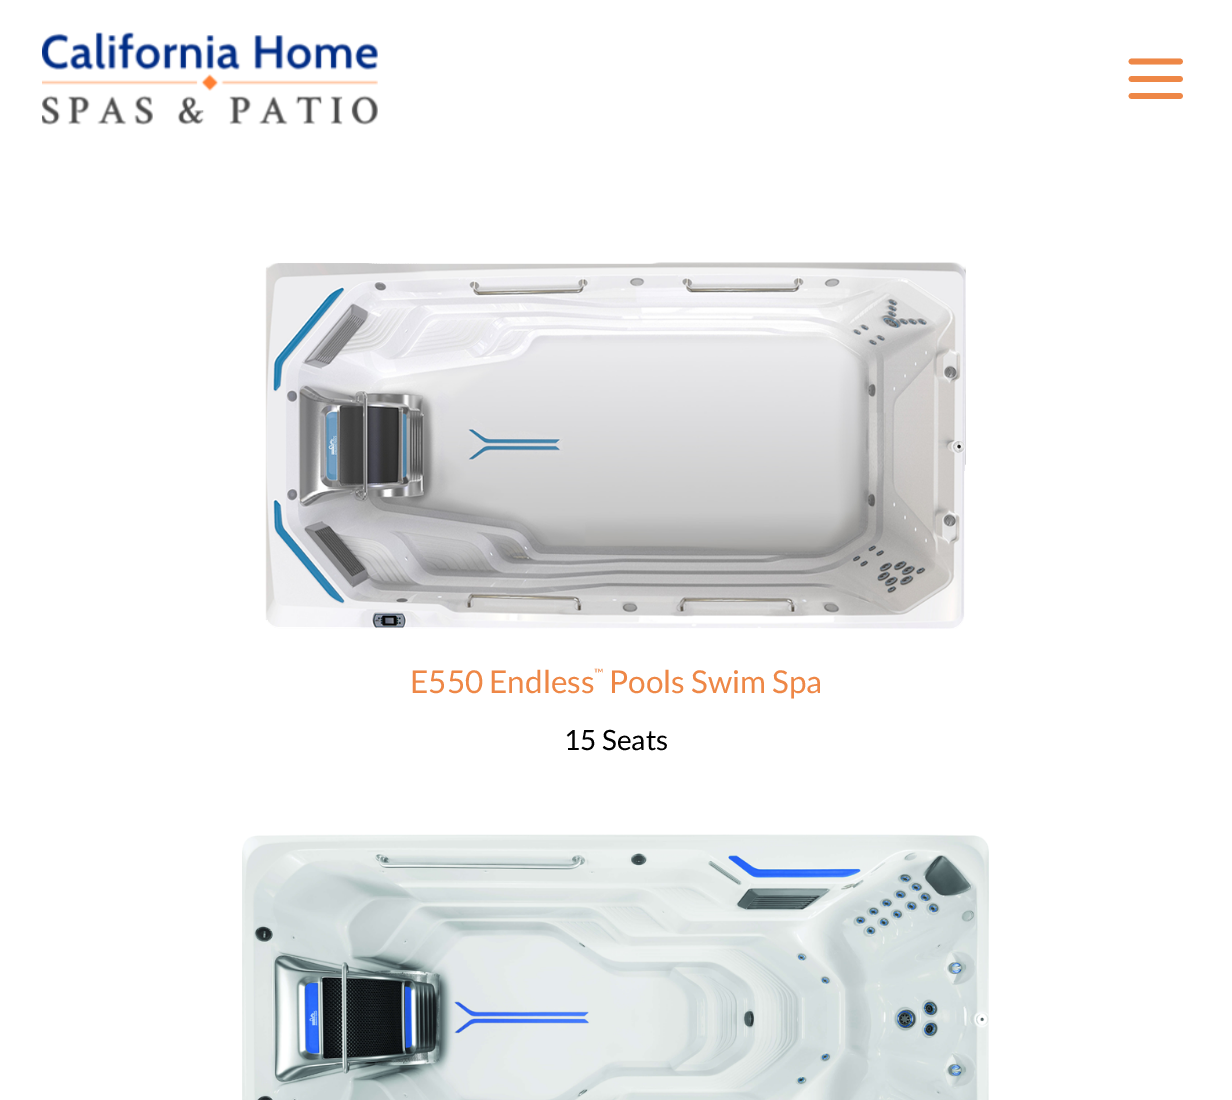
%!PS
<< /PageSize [1232 1100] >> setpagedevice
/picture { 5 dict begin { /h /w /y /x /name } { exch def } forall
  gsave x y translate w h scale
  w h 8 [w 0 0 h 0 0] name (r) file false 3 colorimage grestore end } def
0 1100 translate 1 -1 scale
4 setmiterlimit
1 setgray
0 0 1232 1100 rectfill
(img1.rgb) 42 32 336 93 picture
0.933 0.529 0.275 setrgbcolor
5.7 setlinewidth
1 setlinecap
1 setlinejoin
newpath 1180 96 moveto 1131.5 96 lineto 1180 79 moveto 1131.5 79 lineto 1180 61.5 moveto 1131.5 61.5 lineto stroke
(img2.rgb) 265 262 701 367 picture
/Lato-Regular [31.5 0 0 -31.5 0 0] selectfont
410 693 moveto (E550 Endless) show
/Lato-Regular [13 0 0 -13 0 0] selectfont
594 678 moveto (™) show
/Lato-Regular [31.5 0 0 -31.5 0 0] selectfont
609 693 moveto (Pools Swim Spa) show
/Lato-Regular [28 0 0 -28 0 0] selectfont
0 setgray
564 750 moveto (15 Seats) show
(img3.rgb) 242 834 747 266 picture
showpage
